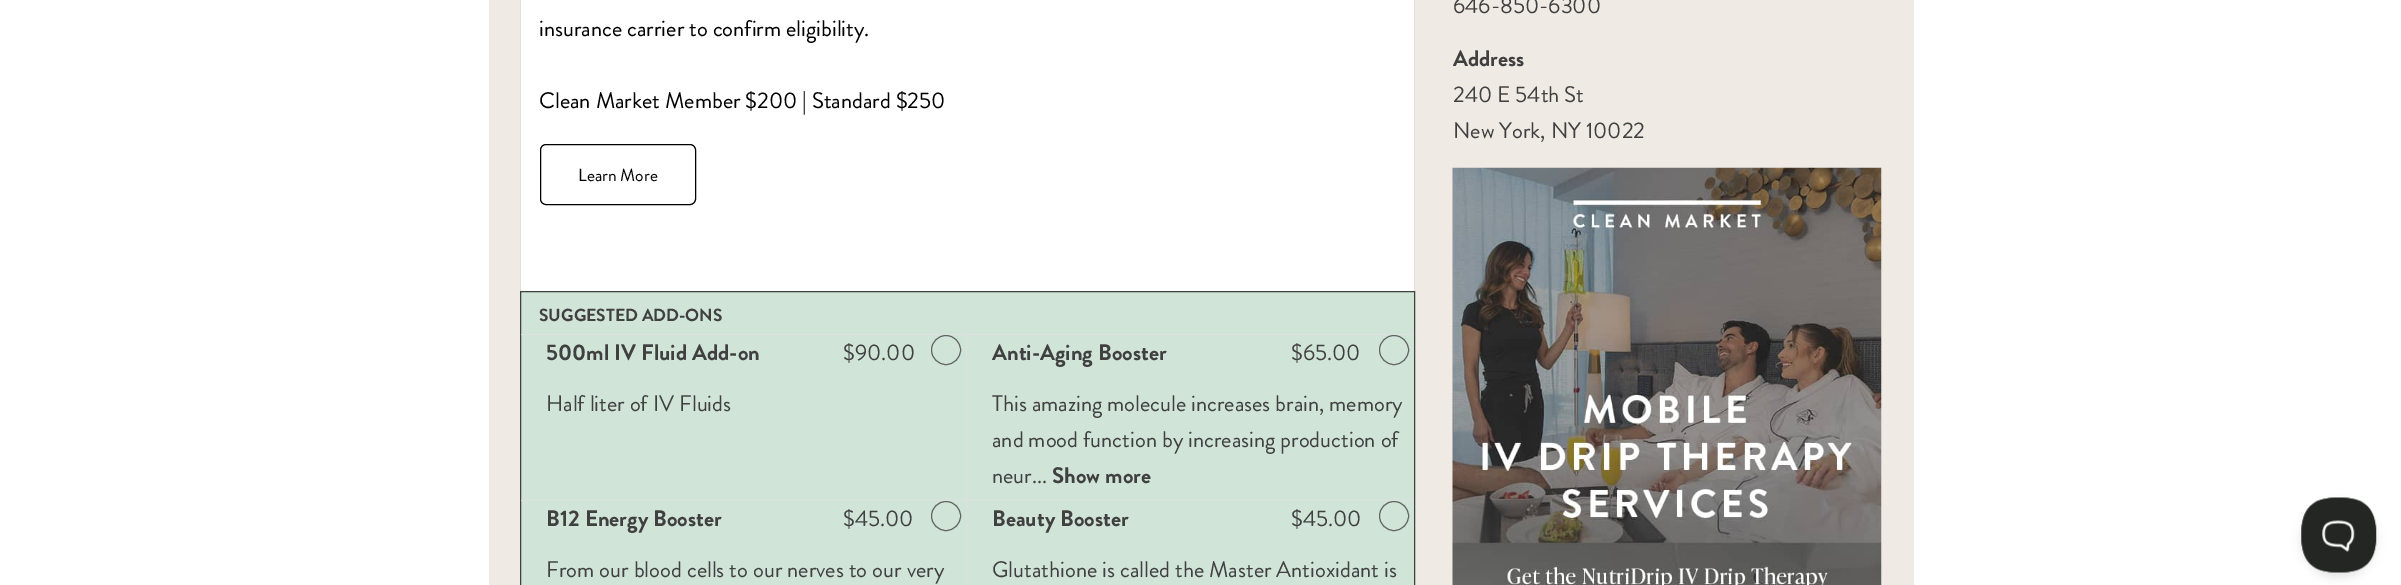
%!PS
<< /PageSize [2401 585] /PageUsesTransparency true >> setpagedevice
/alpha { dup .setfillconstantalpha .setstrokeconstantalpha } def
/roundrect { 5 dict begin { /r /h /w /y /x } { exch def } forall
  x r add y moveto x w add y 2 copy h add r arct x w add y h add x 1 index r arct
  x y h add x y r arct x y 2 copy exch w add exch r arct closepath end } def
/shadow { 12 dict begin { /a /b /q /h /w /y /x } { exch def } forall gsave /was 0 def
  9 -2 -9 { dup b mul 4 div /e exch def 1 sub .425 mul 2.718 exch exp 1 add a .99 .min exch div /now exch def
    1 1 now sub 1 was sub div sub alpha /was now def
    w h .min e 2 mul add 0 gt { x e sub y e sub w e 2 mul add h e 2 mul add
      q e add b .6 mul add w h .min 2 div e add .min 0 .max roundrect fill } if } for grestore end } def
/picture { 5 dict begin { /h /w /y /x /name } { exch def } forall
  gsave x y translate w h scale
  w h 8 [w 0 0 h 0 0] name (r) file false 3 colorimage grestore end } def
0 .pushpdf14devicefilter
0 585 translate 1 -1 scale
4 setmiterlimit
1 setgray
0 0 2401 585 rectfill
0.941 0.918 0.894 setrgbcolor
489 0 1425 585 rectfill
1 setgray
521 0 893 291 rectfill
0.878 setgray
1414 0 1 291 rectfill
520 0 1 291 rectfill
/BrandonGrotesque-Regular [22.5 0 0 -22.5 0 0] selectfont
0 setgray
539 36 moveto (insurance carrier to confirm eligibility.) show
539 108 moveto (Clean Market Member $200 | Standard $250) show
540.5 144.5 155 60 5.5 roundrect stroke
/BrandonGrotesque-Regular [17.5 0 0 -17.5 0 0] selectfont
578 181 moveto (Learn More) show
0.816 0.894 0.843 setrgbcolor
newpath 520.5 291.5 moveto 1414.5 291.5 lineto 1414.5 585.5 lineto 520.5 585.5 lineto closepath gsave fill grestore
0.251 0.251 0.255 setrgbcolor
stroke
/BrandonGrotesque-Bold [17.5 0 0 -17.5 0 0] selectfont
539 321 moveto (SUGGESTED ADD-ONS) show
0.878 setgray
521 334 893 1 rectfill
966 335 1 250 rectfill
521 500 893 1 rectfill
/BrandonGrotesque-Bold [22.5 0 0 -22.5 0 0] selectfont
0.251 0.251 0.255 setrgbcolor
546 360 moveto (500ml IV Fluid Add-on) show
/BrandonGrotesque-Regular [22.5 0 0 -22.5 0 0] selectfont
843 360 moveto ($90.00) show
0.384 0.392 0.4 setrgbcolor
newpath 946 350 14.5 0 360 arc closepath stroke
0.251 0.251 0.255 setrgbcolor
546 411 moveto (Half liter of IV Fluids) show
/BrandonGrotesque-Bold [22.5 0 0 -22.5 0 0] selectfont
992 360 moveto (Anti-Aging Booster) show
/BrandonGrotesque-Regular [22.5 0 0 -22.5 0 0] selectfont
1291 360 moveto ($65.00) show
0.384 0.392 0.4 setrgbcolor
newpath 1394 350 14.5 0 360 arc closepath stroke
0.251 0.251 0.255 setrgbcolor
992 411 moveto (This amazing molecule increases brain, memory) show
992 447 moveto (and mood function by increasing production of) show
992 483 moveto (neur...) show
/BrandonGrotesque-Bold [22.5 0 0 -22.5 0 0] selectfont
1052 483 moveto (Show more) show
546 526 moveto (B12 Energy Booster) show
/BrandonGrotesque-Regular [22.5 0 0 -22.5 0 0] selectfont
843 526 moveto ($45.00) show
0.384 0.392 0.4 setrgbcolor
newpath 946 516 14.5 0 360 arc closepath stroke
0.251 0.251 0.255 setrgbcolor
546 577 moveto (From our blood cells to our nerves to our very) show
/BrandonGrotesque-Bold [22.5 0 0 -22.5 0 0] selectfont
992 526 moveto (Beauty Booster) show
/BrandonGrotesque-Regular [22.5 0 0 -22.5 0 0] selectfont
1291 526 moveto ($45.00) show
0.384 0.392 0.4 setrgbcolor
newpath 1394 516 14.5 0 360 arc closepath stroke
0.251 0.251 0.255 setrgbcolor
992 577 moveto (Glutathione is called the Master Antioxidant is) show
1453 13 moveto (646-850-6300) show
/BrandonGrotesque-Bold [22.5 0 0 -22.5 0 0] selectfont
1453 66 moveto (Address) show
/BrandonGrotesque-Regular [22.5 0 0 -22.5 0 0] selectfont
1453 102 moveto (240 E 54th St) show
1453 138 moveto (New York, NY 10022) show
(img1.rgb) 1452 167 430 418 picture
0 setgray
2301 503 75 75 37.5 4.5 0.1 shadow
(img2.rgb) 2301 497 76 76 picture
.poppdf14devicefilter showpage
